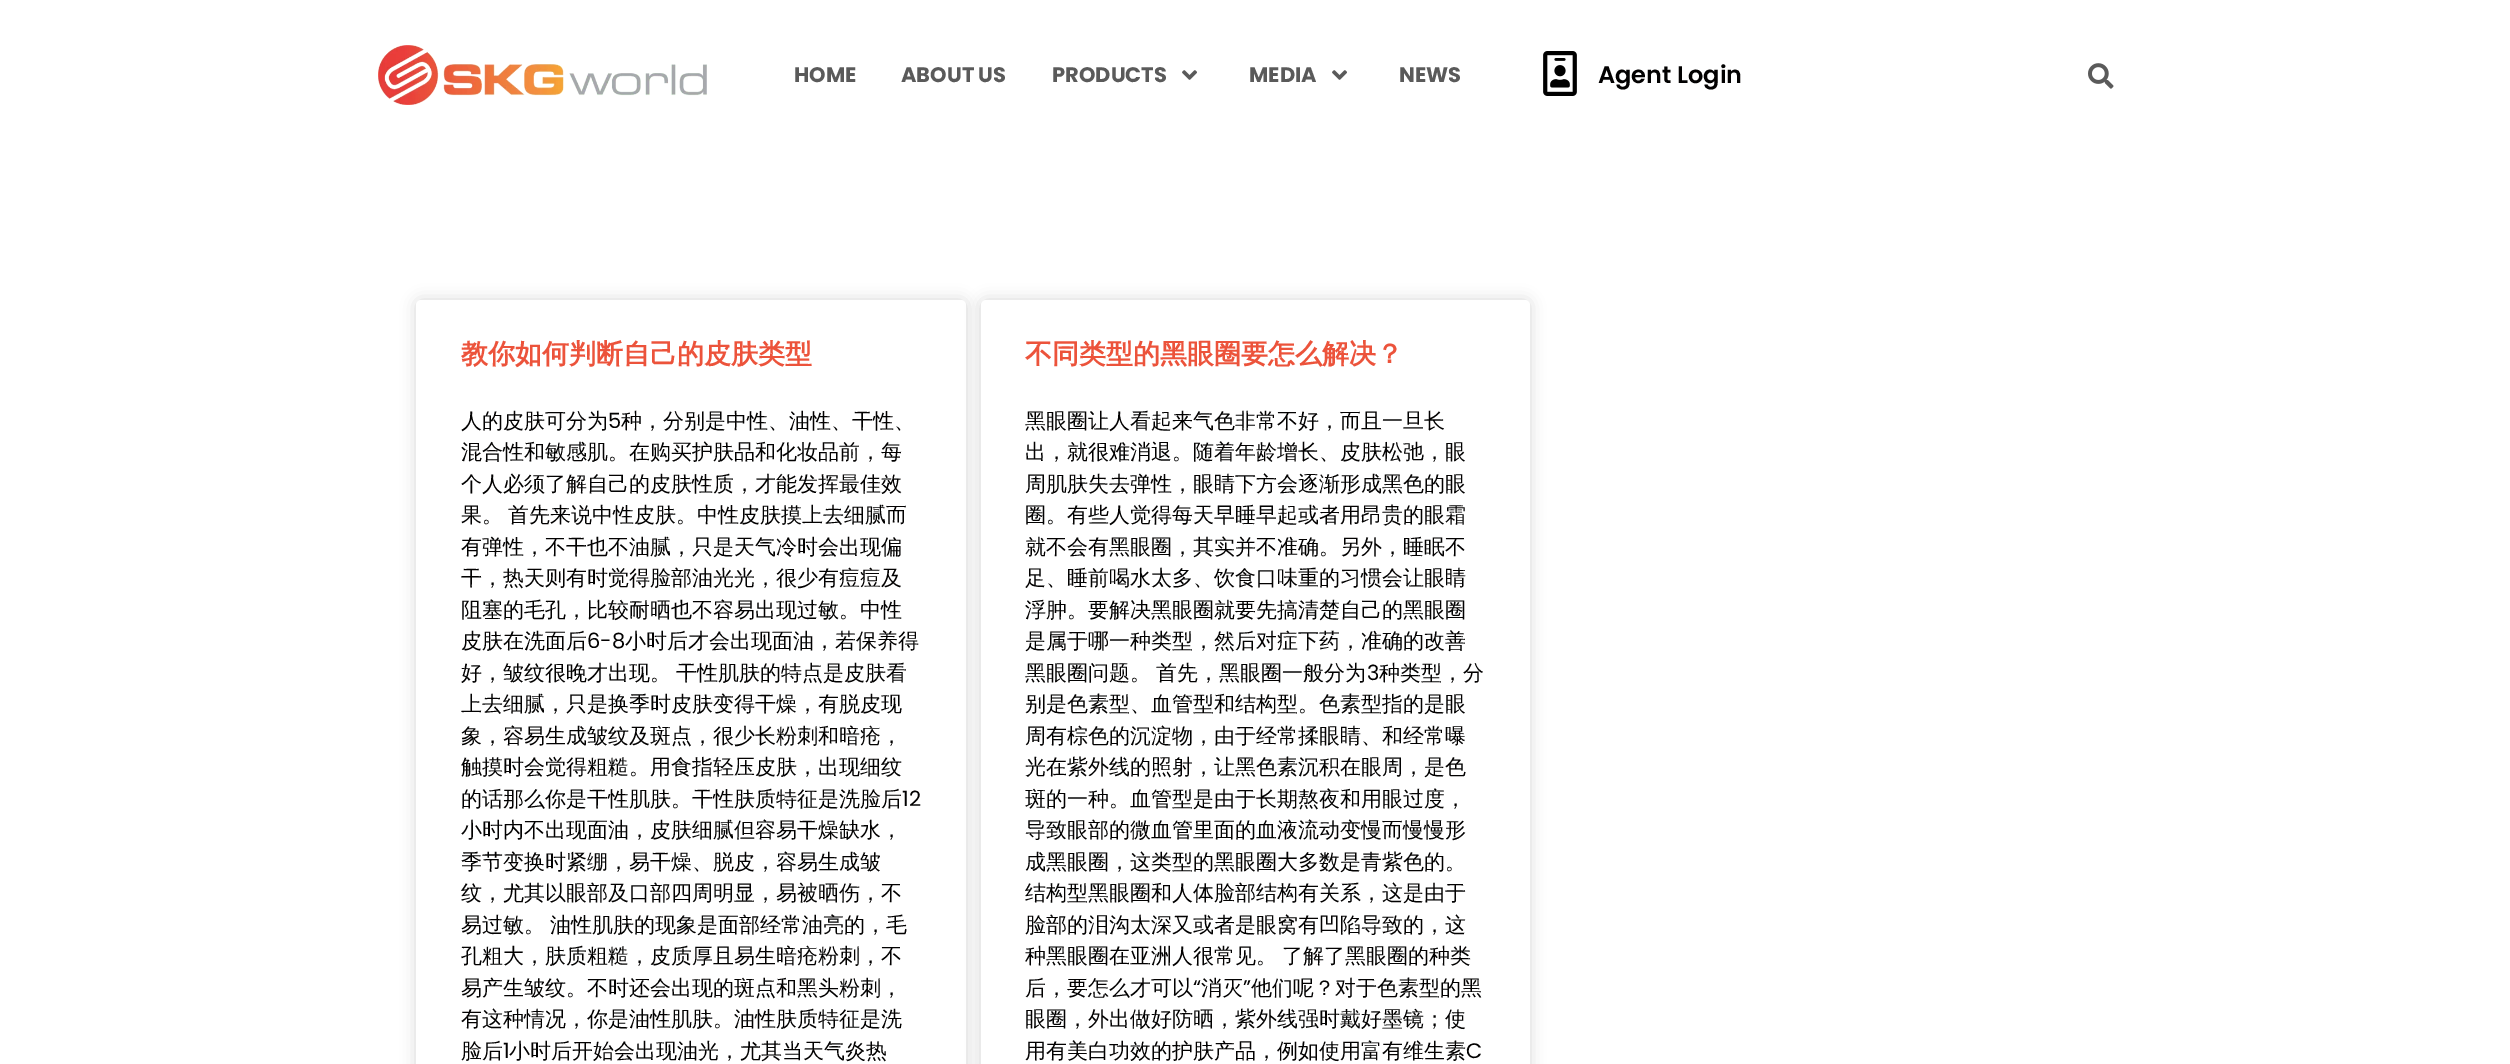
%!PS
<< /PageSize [2510 1064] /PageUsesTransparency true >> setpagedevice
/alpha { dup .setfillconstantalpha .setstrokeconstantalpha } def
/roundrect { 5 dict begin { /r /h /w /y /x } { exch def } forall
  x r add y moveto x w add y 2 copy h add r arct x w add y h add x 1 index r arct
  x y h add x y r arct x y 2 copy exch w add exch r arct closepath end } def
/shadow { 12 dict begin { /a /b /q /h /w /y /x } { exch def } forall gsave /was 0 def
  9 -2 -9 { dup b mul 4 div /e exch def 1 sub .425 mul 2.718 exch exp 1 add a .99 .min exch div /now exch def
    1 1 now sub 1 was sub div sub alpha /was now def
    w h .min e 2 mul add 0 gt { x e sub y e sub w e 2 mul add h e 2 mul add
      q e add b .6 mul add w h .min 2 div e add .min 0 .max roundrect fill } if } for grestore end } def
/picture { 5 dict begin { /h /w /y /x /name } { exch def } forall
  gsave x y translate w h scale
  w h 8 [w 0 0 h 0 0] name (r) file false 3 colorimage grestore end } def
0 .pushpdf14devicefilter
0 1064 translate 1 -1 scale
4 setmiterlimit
1 setgray
0 0 2510 1064 rectfill
(img1.rgb) 378 45 329 60 picture
/Poppins-Bold [21 0 0 -21 0 0] selectfont
0.353 setgray
794 82 moveto (HOME) show
901 82 moveto (ABOUT US) show
1052 82 moveto (PRODUCTS) show
(img2.rgb) 1182 70 15 10 picture
1249 82 moveto (MEDIA) show
(img2.rgb) 1332 70 15 10 picture
1399 82 moveto (NEWS) show
(img3.rgb) 1543 51 34 45 picture
/Poppins-SemiBold [24 0 0 -24 0 0] selectfont
0.008 0.004 0.004 setrgbcolor
1598 83 moveto (Agent Login) show
(img4.rgb) 2088 63 26 26 picture
0 setgray
416 300 550 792 5 7.5 0.15 shadow
1 setgray
416 300 550 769 5 roundrect fill
/WenQuanYiZenHei-Bold [27 0 0 -27 0 0] selectfont
0.925 0.325 0.231 setrgbcolor
461 363 moveto (教你如何判断自己的皮肤类型) show
/WenQuanYiZenHei-Medium [21 0 0 -21 0 0] selectfont
0.008 0.004 0.004 setrgbcolor
461 428 moveto (人的皮肤可分为) show
/Poppins-Regular [21 0 0 -21 0 0] selectfont
608 428 moveto (5) show
/WenQuanYiZenHei-Medium [21 0 0 -21 0 0] selectfont
621 428 moveto (种，分别是中性、油性、干性、) show
461 459 moveto (混合性和敏感肌。在购买护肤品和化妆品前，每) show
461 491 moveto (个人必须了解自己的皮肤性质，才能发挥最佳效) show
461 522 moveto -1 0 32 (果。 首先来说中性皮肤。中性皮肤摸上去细腻而) widthshow
461 554 moveto (有弹性，不干也不油腻，只是天气冷时会出现偏) show
461 585 moveto (干，热天则有时觉得脸部油光光，很少有痘痘及) show
461 617 moveto (阻塞的毛孔，比较耐晒也不容易出现过敏。中性) show
461 648 moveto (皮肤在洗面后) show
/Poppins-Regular [21 0 0 -21 0 0] selectfont
587 648 moveto (6-8) show
/WenQuanYiZenHei-Medium [21 0 0 -21 0 0] selectfont
625 648 moveto (小时后才会出现面油，若保养得) show
461 680 moveto -1 0 32 (好，皱纹很晚才出现。 干性肌肤的特点是皮肤看) widthshow
461 711 moveto (上去细腻，只是换季时皮肤变得干燥，有脱皮现) show
461 743 moveto (象，容易生成皱纹及斑点，很少长粉刺和暗疮，) show
461 774 moveto (触摸时会觉得粗糙。用食指轻压皮肤，出现细纹) show
461 806 moveto (的话那么你是干性肌肤。干性肤质特征是洗脸后) show
/Poppins-Regular [21 0 0 -21 0 0] selectfont
902 806 moveto (12) show
/WenQuanYiZenHei-Medium [21 0 0 -21 0 0] selectfont
461 837 moveto (小时内不出现面油，皮肤细腻但容易干燥缺水，) show
461 869 moveto (季节变换时紧绷，易干燥、脱皮，容易生成皱) show
461 900 moveto (纹，尤其以眼部及口部四周明显，易被晒伤，不) show
461 932 moveto -1 0 32 (易过敏。 油性肌肤的现象是面部经常油亮的，毛) widthshow
461 963 moveto (孔粗大，肤质粗糙，皮质厚且易生暗疮粉刺，不) show
461 995 moveto (易产生皱纹。不时还会出现的斑点和黑头粉刺，) show
461 1026 moveto (有这种情况，你是油性肌肤。油性肤质特征是洗) show
461 1058 moveto (脸后) show
/Poppins-Regular [21 0 0 -21 0 0] selectfont
503 1058 moveto (1) show
/WenQuanYiZenHei-Medium [21 0 0 -21 0 0] selectfont
509 1058 moveto (小时后开始会出现油光，尤其当天气炎热) show
0 setgray
981 300 549 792 5 7.5 0.15 shadow
1 setgray
981 300 549 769 5 roundrect fill
/WenQuanYiZenHei-Bold [27 0 0 -27 0 0] selectfont
0.925 0.325 0.231 setrgbcolor
1025 363 moveto (不同类型的黑眼圈要怎么解决？) show
/WenQuanYiZenHei-Medium [21 0 0 -21 0 0] selectfont
0.008 0.004 0.004 setrgbcolor
1025 428 moveto (黑眼圈让人看起来气色非常不好，而且一旦长) show
1025 459 moveto (出，就很难消退。随着年龄增长、皮肤松弛，眼) show
1025 491 moveto (周肌肤失去弹性，眼睛下方会逐渐形成黑色的眼) show
1025 522 moveto (圈。有些人觉得每天早睡早起或者用昂贵的眼霜) show
1025 554 moveto (就不会有黑眼圈，其实并不准确。另外，睡眠不) show
1025 585 moveto (足、睡前喝水太多、饮食口味重的习惯会让眼睛) show
1025 617 moveto (浮肿。要解决黑眼圈就要先搞清楚自己的黑眼圈) show
1025 648 moveto (是属于哪一种类型，然后对症下药，准确的改善) show
1025 680 moveto -1 0 32 (黑眼圈问题。 首先，黑眼圈一般分为) widthshow
/Poppins-Regular [21 0 0 -21 0 0] selectfont
1367 680 moveto (3) show
/WenQuanYiZenHei-Medium [21 0 0 -21 0 0] selectfont
1379 680 moveto (种类型，分) show
1025 711 moveto (别是色素型、血管型和结构型。色素型指的是眼) show
1025 743 moveto (周有棕色的沉淀物，由于经常揉眼睛、和经常曝) show
1025 774 moveto (光在紫外线的照射，让黑色素沉积在眼周，是色) show
1025 806 moveto (斑的一种。血管型是由于长期熬夜和用眼过度，) show
1025 837 moveto (导致眼部的微血管里面的血液流动变慢而慢慢形) show
1025 869 moveto (成黑眼圈，这类型的黑眼圈大多数是青紫色的。) show
1025 900 moveto (结构型黑眼圈和人体脸部结构有关系，这是由于) show
1025 932 moveto (脸部的泪沟太深又或者是眼窝有凹陷导致的，这) show
1025 963 moveto -1 0 32 (种黑眼圈在亚洲人很常见。 了解了黑眼圈的种类) widthshow
1025 995 moveto (后，要怎么才可以) show
/Poppins-Regular [21 0 0 -21 0 0] selectfont
1193 995 moveto (“) show
/WenQuanYiZenHei-Medium [21 0 0 -21 0 0] selectfont
1201 995 moveto (消灭) show
/Poppins-Regular [21 0 0 -21 0 0] selectfont
1243 995 moveto (”) show
/WenQuanYiZenHei-Medium [21 0 0 -21 0 0] selectfont
1251 995 moveto (他们呢？对于色素型的黑) show
1025 1026 moveto (眼圈，外出做好防晒，紫外线强时戴好墨镜；使) show
1025 1058 moveto (用有美白功效的护肤产品，例如使用富有维生素) show
/Poppins-Regular [21 0 0 -21 0 0] selectfont
1466 1058 moveto (C) show
.poppdf14devicefilter showpage
